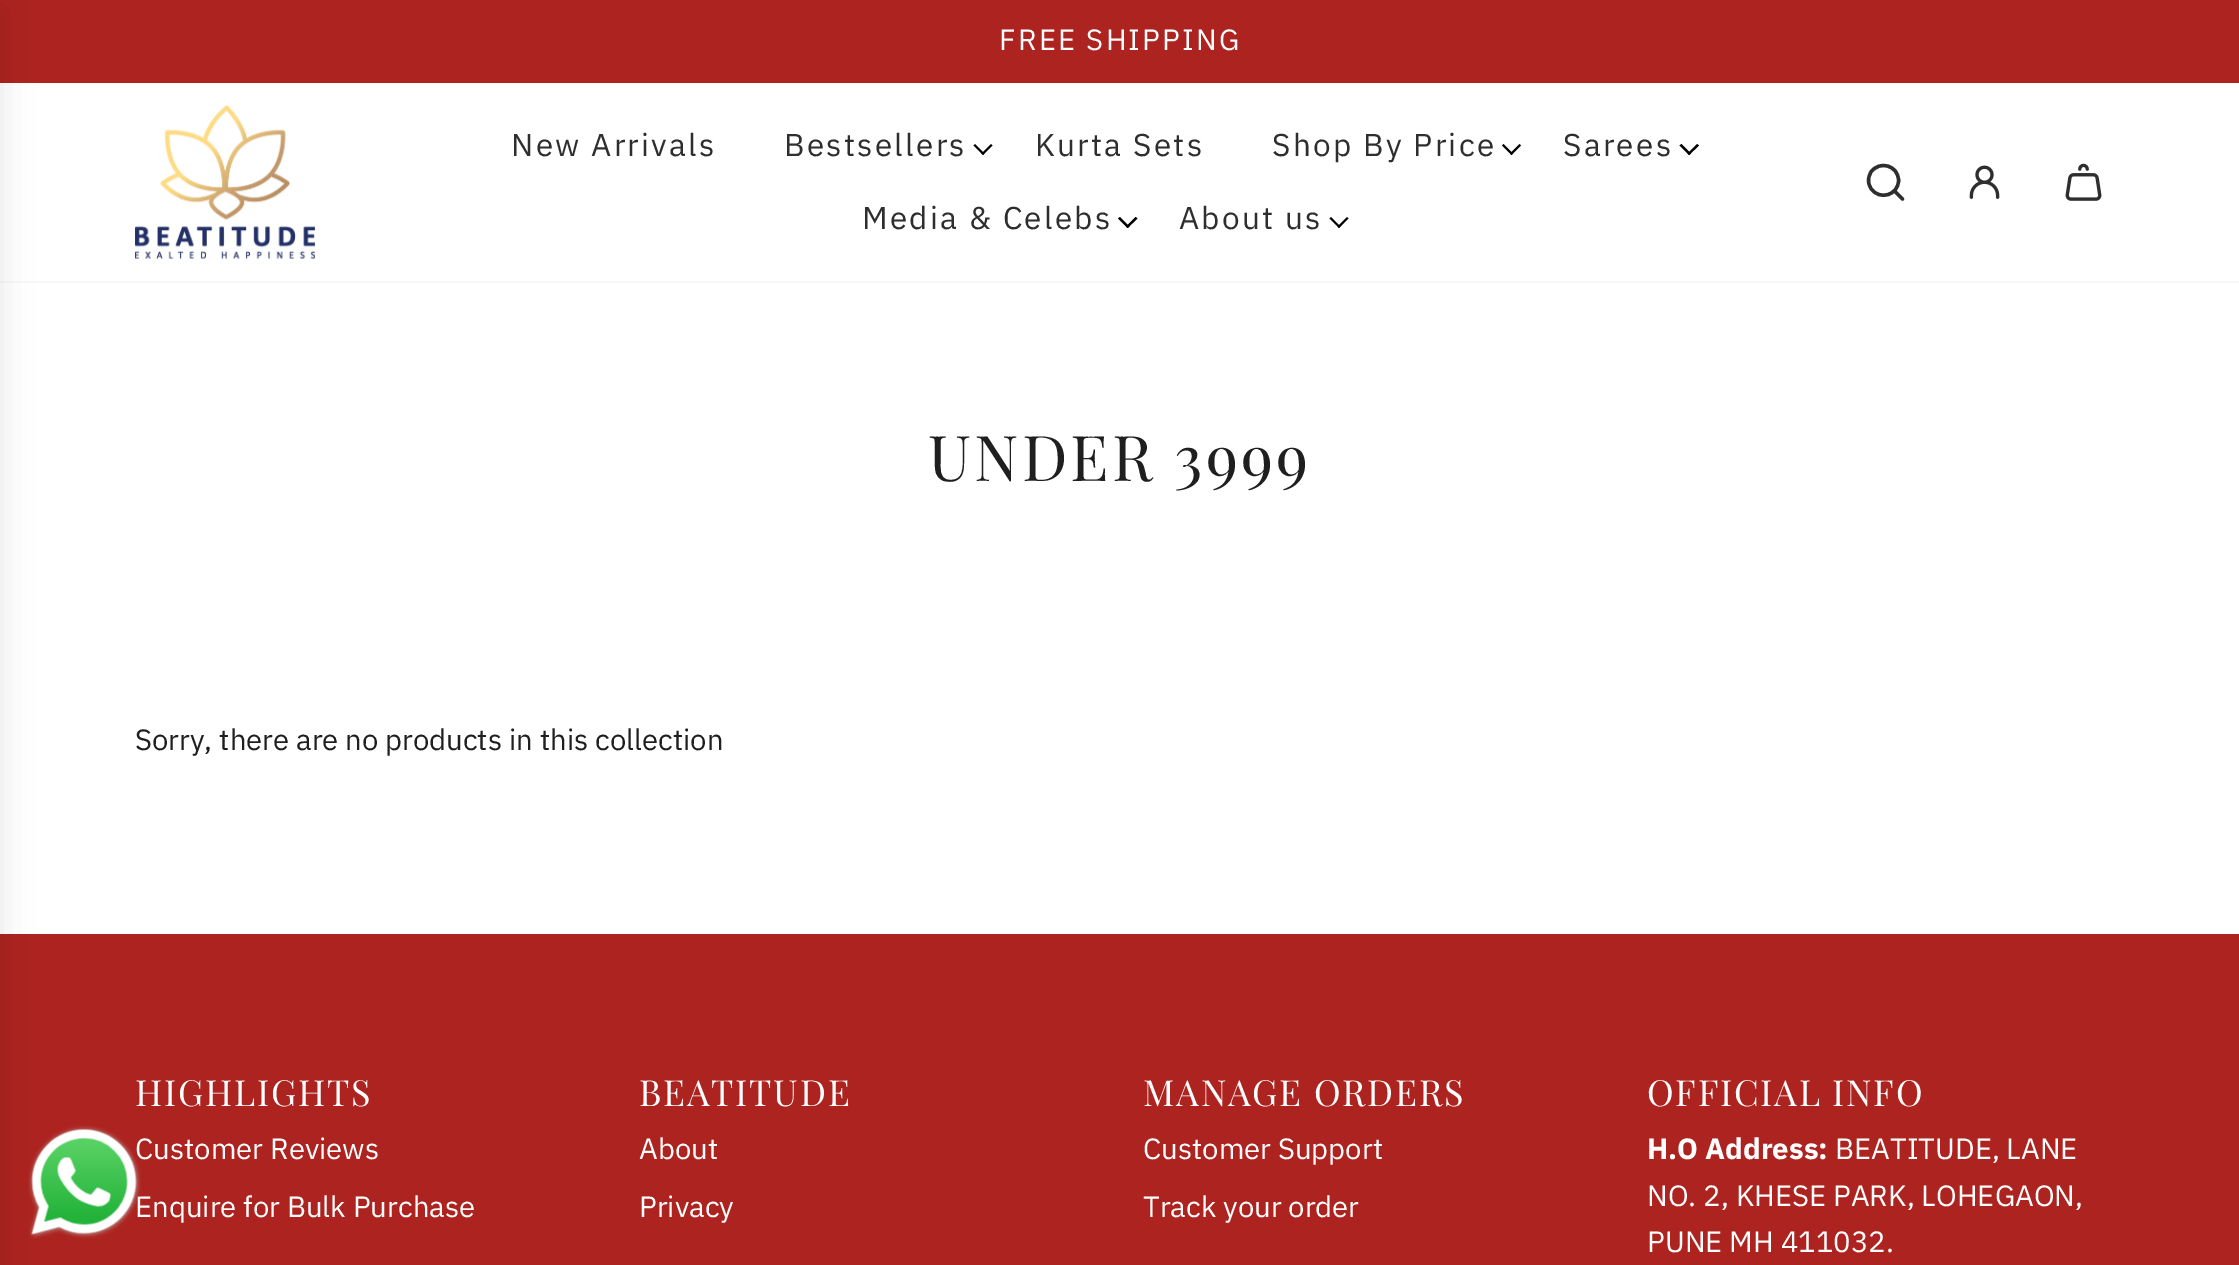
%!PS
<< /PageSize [2239 1265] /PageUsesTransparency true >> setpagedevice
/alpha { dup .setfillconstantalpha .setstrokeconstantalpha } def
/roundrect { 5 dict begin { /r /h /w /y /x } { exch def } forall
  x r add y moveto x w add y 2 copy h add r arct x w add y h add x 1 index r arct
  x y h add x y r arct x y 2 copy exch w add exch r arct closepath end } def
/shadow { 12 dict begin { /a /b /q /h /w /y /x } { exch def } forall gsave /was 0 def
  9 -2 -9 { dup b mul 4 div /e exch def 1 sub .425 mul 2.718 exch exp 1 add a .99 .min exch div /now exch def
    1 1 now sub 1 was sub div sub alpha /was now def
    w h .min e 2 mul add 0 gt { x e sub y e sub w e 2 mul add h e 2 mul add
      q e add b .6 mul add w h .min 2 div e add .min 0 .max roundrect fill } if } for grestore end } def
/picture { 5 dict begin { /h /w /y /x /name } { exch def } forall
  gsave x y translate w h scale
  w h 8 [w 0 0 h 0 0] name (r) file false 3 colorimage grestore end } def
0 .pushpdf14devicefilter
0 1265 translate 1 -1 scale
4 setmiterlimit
1 setgray
0 0 2239 1265 rectfill
0.678 0.137 0.122 setrgbcolor
0 0 2239 83 rectfill
/IBMPlexSans-Regular [29.25 0 0 -29.25 0 0] selectfont
1 setgray
999 50 moveto 2.25 0 (FREE SHIPPING) ashow
0.973 setgray
0 281 2239 2 rectfill
0.678 0.137 0.122 setrgbcolor
0 934 2239 331 rectfill
0 setgray
-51 11 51 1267 0 17 0.1 shadow
(img1.rgb) 135 105 180 154 picture
/IBMPlexSans-Regular [31.5 0 0 -31.5 0 0] selectfont
0.18 setgray
511 156 moveto 2.25 0 (New Arrivals) ashow
784 156 moveto 2.25 0 (Bestsellers) ashow
0 setgray
newpath 991 144 moveto 992.5 145.5 lineto 983 155 lineto 981.5 153.5 lineto closepath fill
newpath 975 144 moveto 984.5 153.5 lineto 983 155 lineto 973.5 145.5 lineto closepath fill
0.18 setgray
1035 156 moveto 2.25 0 (Kurta Sets) ashow
1272 156 moveto 2.25 0 (Shop By Price) ashow
0 setgray
newpath 1519.5 144 moveto 1521 145.5 lineto 1511.5 155 lineto 1510 153.5 lineto closepath fill
newpath 1503.5 144 moveto 1513 153.5 lineto 1511.5 155 lineto 1502 145.5 lineto closepath fill
0.18 setgray
1563 156 moveto 2.25 0 (Sarees) ashow
0 setgray
newpath 1697 144 moveto 1699 145.5 lineto 1689 155 lineto 1687.5 153.5 lineto closepath fill
newpath 1681.5 144 moveto 1691 153.5 lineto 1689 155 lineto 1679.5 145.5 lineto closepath fill
0.18 setgray
862 229 moveto 2.25 0 (Media & Celebs) ashow
0 setgray
newpath 1135.5 217 moveto 1137.5 218.5 lineto 1127.5 228 lineto 1126 226.5 lineto closepath fill
newpath 1120 217 moveto 1129.5 226.5 lineto 1127.5 228 lineto 1118 218.5 lineto closepath fill
0.18 setgray
1179 229 moveto 2.25 0 (About us) ashow
0 setgray
newpath 1347 217 moveto 1348.5 218.5 lineto 1339 228 lineto 1337.5 226.5 lineto closepath fill
newpath 1331 217 moveto 1340.5 226.5 lineto 1339 228 lineto 1329.5 218.5 lineto closepath fill
0.18 setgray
3.4 setlinewidth
1 setlinecap
1 setlinejoin
newpath 1895 191.5 moveto 1902.5 199 lineto 1868.5 180.5 moveto 1868.5 183.5 1869.5 186 1871 188.5 curveto 1879.5 201 1898.5 195 1898.5 180.5 curveto 1898.5 165.5 1879.5 160 1871 172 curveto 1869.5 174.5 1868.5 177.5 1868.5 180.5 curveto closepath stroke
(img2.rgb) 1969 165 31 34 picture
(img3.rgb) 2065 163 37 38 picture
/PlayfairDisplay-Regular [63 0 0 -63 0 0] selectfont
0.122 setgray
928 481 moveto 3.1 0 (UNDER 3999) ashow
/IBMPlexSans-Regular [29.25 0 0 -29.25 0 0] selectfont
135 750 moveto (Sorry, there are no products in this collection) show
1 setgray
135 1159 moveto (Customer Reviews) show
135 1217 moveto (Enquire for Bulk Purchase) show
(img4.rgb) 28 1125 113 114 picture
/PlayfairDisplay-Regular [36 0 0 -36 0 0] selectfont
135 1106 moveto 1.75 0 (HIGHLIGHTS) ashow
639 1106 moveto 1.75 0 (BEATITUDE) ashow
/IBMPlexSans-Regular [29.25 0 0 -29.25 0 0] selectfont
639 1159 moveto (About) show
639 1217 moveto (Privacy) show
/PlayfairDisplay-Regular [36 0 0 -36 0 0] selectfont
1143 1106 moveto 1.75 0 (MANAGE ORDERS) ashow
/IBMPlexSans-Regular [29.25 0 0 -29.25 0 0] selectfont
1143 1159 moveto (Customer Support) show
1143 1217 moveto (Track your order) show
/PlayfairDisplay-Regular [36 0 0 -36 0 0] selectfont
1647 1106 moveto 1.75 0 (OFFICIAL INFO) ashow
/IBMPlexSans-Bold [29.25 0 0 -29.25 0 0] selectfont
1647 1159 moveto (H.O Address:) show
/IBMPlexSans-Regular [29.25 0 0 -29.25 0 0] selectfont
1835 1159 moveto (BEATITUDE, LANE) show
1647 1206 moveto (NO. 2, KHESE PARK, LOHEGAON,) show
1647 1252 moveto (PUNE MH 411032.) show
.poppdf14devicefilter showpage
